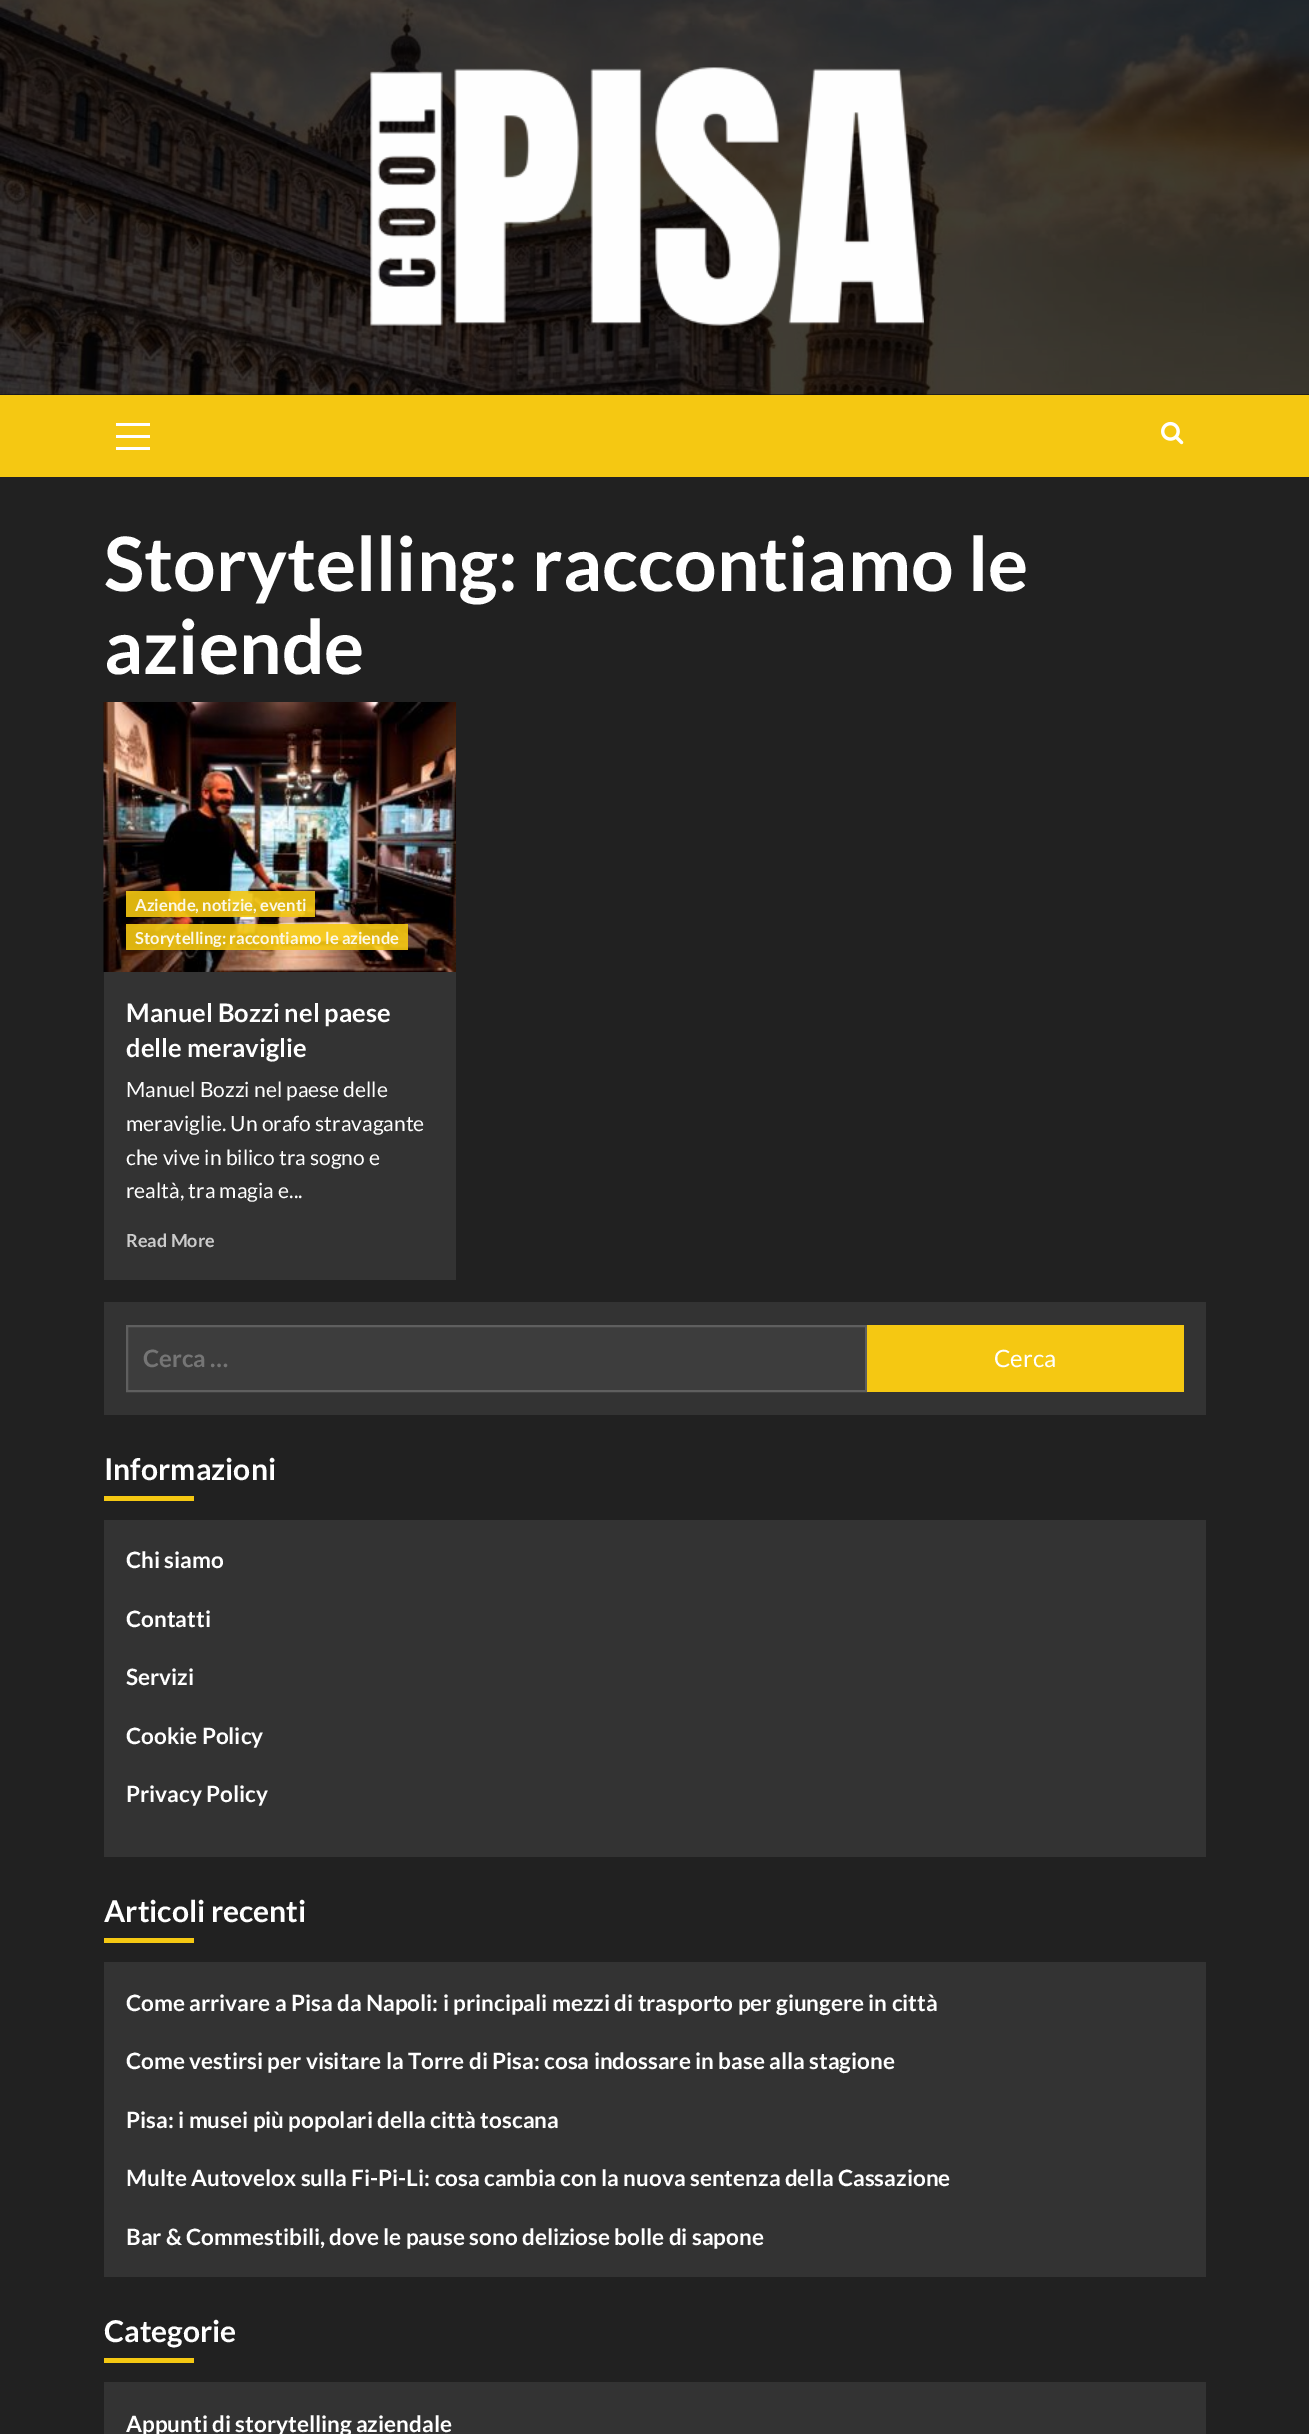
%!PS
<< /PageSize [1309 2434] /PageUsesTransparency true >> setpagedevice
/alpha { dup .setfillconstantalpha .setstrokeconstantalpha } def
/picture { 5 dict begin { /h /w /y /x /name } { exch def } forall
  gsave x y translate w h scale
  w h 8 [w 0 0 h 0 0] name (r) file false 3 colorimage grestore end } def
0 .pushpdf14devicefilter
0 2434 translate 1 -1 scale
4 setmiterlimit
0.129 setgray
0 0 1309 2434 rectfill
0.031 setgray
0 394 1309 1 rectfill
(img1.rgb) 0 0 1309 395 picture
(img2.rgb) 370 67 554 259 picture
0.961 0.784 0.071 setrgbcolor
0 395 1309 82 rectfill
1 setgray
116 435 34 3 rectfill
116 423 34 3 rectfill
116 447 34 3 rectfill
(img3.rgb) 1161 421 23 24 picture
/Lato-Bold [75 0 0 -75 0 0] selectfont
104 591 moveto (Storytelling: raccontiamo le) show
104 674 moveto (aziende) show
0.2 setgray
104 972 352 308 rectfill
(img4.rgb) 103 702 353 270 picture
0.9 alpha
0.961 0.784 0.071 setrgbcolor
126 891 189 26 rectfill
/Lato-Bold [16.5 0 0 -16.5 0 0] selectfont
1 alpha
0.988 0.973 0.906 setrgbcolor
135 911 moveto (Aziende, notizie, eventi) show
0.9 alpha
0.961 0.784 0.071 setrgbcolor
126 924 282 26 rectfill
1 alpha
0.988 0.973 0.906 setrgbcolor
135 944 moveto (Storytelling: raccontiamo le aziende) show
/Lato-Bold [25.5 0 0 -25.5 0 0] selectfont
1 setgray
126 1022 moveto (Manuel Bozzi nel paese) show
126 1057 moveto (delle meraviglie) show
/Lato-Regular [21 0 0 -21 0 0] selectfont
126 1097 moveto (Manuel Bozzi nel paese delle) show
126 1131 moveto (meraviglie. Un orafo stravagante) show
126 1165 moveto (che vive in bilico tra sogno e) show
126 1198 moveto (realtà, tra magia e...) show
/Lato-Bold [18 0 0 -18 0 0] selectfont
0.8 setgray
126 1247 moveto (Read More) show
0.2 setgray
104 1302 1102 113 rectfill
0.239 setgray
newpath 127 1326 moveto 866 1326 lineto 866 1391 lineto 127 1391 lineto closepath gsave fill grestore
0.373 setgray
2 setlinewidth
stroke
/Lato-Bold [24 0 0 -24 0 0] selectfont
0.459 setgray
143 1367 moveto (Cerca …) show
0.961 0.784 0.071 setrgbcolor
867 1325 317 67 rectfill
/Lato-Regular [24 0 0 -24 0 0] selectfont
1 setgray
994 1367 moveto (Cerca) show
/Lato-Bold [30 0 0 -30 0 0] selectfont
104 1480 moveto (Informazioni) show
0.961 0.784 0.071 setrgbcolor
104 1496 90 5 rectfill
0.2 setgray
104 1520 1102 337 rectfill
/Lato-Bold [22.5 0 0 -22.5 0 0] selectfont
1 setgray
126 1568 moveto (Chi siamo) show
126 1627 moveto (Contatti) show
126 1685 moveto (Servizi) show
126 1744 moveto (Cookie Policy) show
126 1802 moveto (Privacy Policy) show
/Lato-Bold [30 0 0 -30 0 0] selectfont
104 1922 moveto (Articoli recenti) show
0.961 0.784 0.071 setrgbcolor
104 1938 90 5 rectfill
0.2 setgray
104 1962 1102 315 rectfill
/Lato-Bold [22.5 0 0 -22.5 0 0] selectfont
1 setgray
126 2011 moveto (Come arrivare a Pisa da Napoli: i principali mezzi di trasporto per giungere in città) show
126 2069 moveto (Come vestirsi per visitare la Torre di Pisa: cosa indossare in base alla stagione) show
126 2128 moveto (Pisa: i musei più popolari della città toscana) show
126 2186 moveto (Multe Autovelox sulla Fi-Pi-Li: cosa cambia con la nuova sentenza della Cassazione) show
126 2245 moveto (Bar & Commestibili, dove le pause sono deliziose bolle di sapone) show
/Lato-Bold [30 0 0 -30 0 0] selectfont
104 2342 moveto (Categorie) show
0.961 0.784 0.071 setrgbcolor
104 2358 90 5 rectfill
0.2 setgray
104 2382 1102 52 rectfill
/Lato-Bold [22.5 0 0 -22.5 0 0] selectfont
1 setgray
126 2432 moveto (Appunti di storytelling aziendale) show
.poppdf14devicefilter showpage
